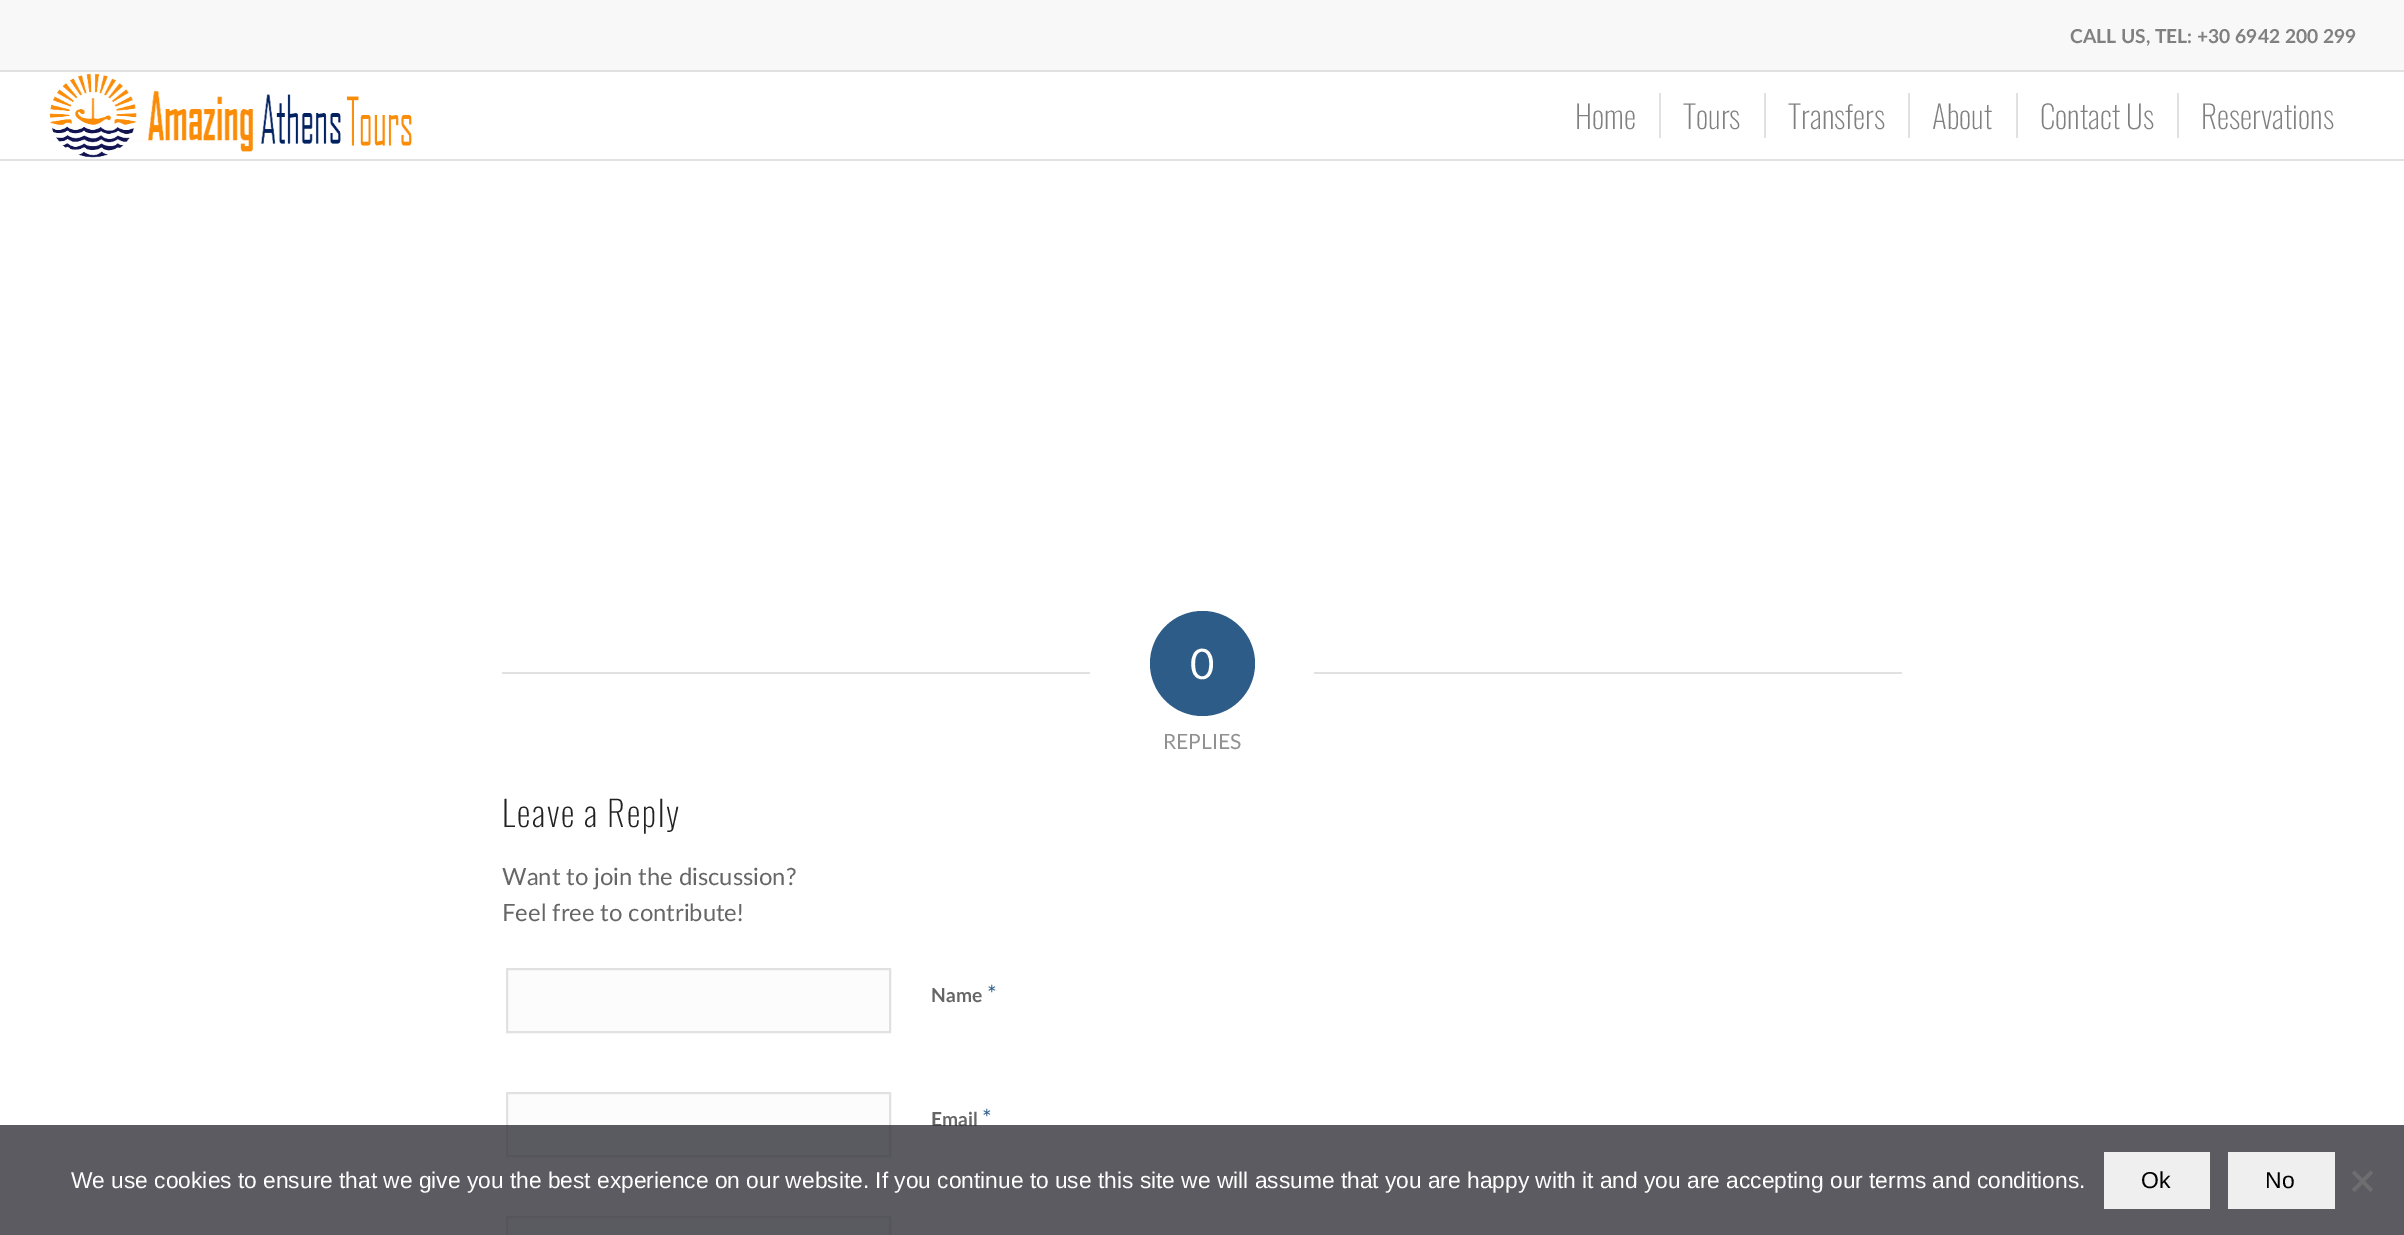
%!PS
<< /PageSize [2404 1235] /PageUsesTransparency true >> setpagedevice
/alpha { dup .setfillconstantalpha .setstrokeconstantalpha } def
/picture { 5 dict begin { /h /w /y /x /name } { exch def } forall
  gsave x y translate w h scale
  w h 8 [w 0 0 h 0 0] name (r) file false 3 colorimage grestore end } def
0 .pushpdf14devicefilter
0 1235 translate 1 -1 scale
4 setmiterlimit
1 setgray
0 0 2404 1235 rectfill
0.973 setgray
0 0 2404 70 rectfill
0.882 setgray
0 70 2404 2 rectfill
/Lato-Bold [19.25 0 0 -19.25 0 0] selectfont
0.502 setgray
2070 43 moveto (CALL US, TEL: +30 6942 200 299) show
0.882 setgray
0 159 2404 2 rectfill
(img1.rgb) 50 73 362 85 picture
/Oswald-ExtraLight [31.5 0 0 -31.5 0 0] selectfont
0.502 setgray
1575 129 moveto (Home) show
1683 129 moveto (Tours) show
0.882 setgray
1659 93 2 45 rectfill
0.502 setgray
1788 129 moveto (Transfers) show
0.882 setgray
1764 93 2 45 rectfill
0.502 setgray
1932 129 moveto (About) show
0.882 setgray
1908 93 2 45 rectfill
0.502 setgray
2040 129 moveto (Contact Us) show
0.882 setgray
2016 93 2 45 rectfill
0.502 setgray
2201 129 moveto (Reservations) show
0.882 setgray
2177 93 2 45 rectfill
502 672 588 2 rectfill
0.176 0.361 0.533 setrgbcolor
newpath 1202.5 663.5 52.5 0 360 arc closepath fill
/Lato-Regular [42 0 0 -42 0 0] selectfont
1 setgray
1190 679 moveto (0) show
0.882 setgray
1314 672 588 2 rectfill
/Lato-Regular [21 0 0 -21 0 0] selectfont
0.569 setgray
1163 749 moveto (REPLIES) show
/Oswald-ExtraLight [35 0 0 -35 0 0] selectfont
0.133 setgray
502 827 moveto 1.75 0 (Leave a Reply) ashow
/Lato-Regular [23.75 0 0 -23.75 0 0] selectfont
0.4 setgray
502 885 moveto (Want to join the discussion?) show
502 921 moveto (Feel free to contribute!) show
0.988 setgray
newpath 507 969 moveto 890 969 lineto 890 1032 lineto 507 1032 lineto closepath gsave fill grestore
0.882 setgray
2 setlinewidth
stroke
/Lato-Bold [19.25 0 0 -19.25 0 0] selectfont
0.4 setgray
931 1002 moveto (Name) show
/Lato-Regular [22.75 0 0 -22.75 0 0] selectfont
0.176 0.361 0.533 setrgbcolor
987 1002 moveto (*) show
0.988 setgray
newpath 507 1093 moveto 890 1093 lineto 890 1156 lineto 507 1156 lineto closepath gsave fill grestore
0.882 setgray
stroke
/Lato-Bold [19.25 0 0 -19.25 0 0] selectfont
0.4 setgray
931 1126 moveto (Email) show
/Lato-Regular [22.75 0 0 -22.75 0 0] selectfont
0.176 0.361 0.533 setrgbcolor
982 1126 moveto (*) show
0.988 setgray
newpath 507 1217 moveto 890 1217 lineto 890 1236 lineto 507 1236 lineto closepath gsave fill grestore
0.882 setgray
stroke
0.8 alpha
0.196 0.196 0.227 setrgbcolor
0 1125 2404 110 rectfill
/LiberationSans-Regular [22.75 0 0 -22.75 0 0] selectfont
1 alpha
1 setgray
71 1188 moveto (We use cookies to ensure that we give you the best experience on our website. If you continue to use this site we will assume that you are happy with it and you are accepting our terms and conditions.) show
0.937 setgray
2104 1152 106 57 rectfill
/LiberationSans-Regular [23 0 0 -23 0 0] selectfont
0 setgray
2141 1188 moveto (Ok) show
0.937 setgray
2228 1152 107 57 rectfill
0 setgray
2265 1188 moveto (No) show
0.431 0.431 0.443 setrgbcolor
newpath 2370.5 1170.5 moveto 2373 1173 lineto 2354.5 1192 lineto 2352 1189.5 lineto closepath fill
newpath 2352 1173 moveto 2354.5 1170.5 lineto 2373 1189.5 lineto 2370.5 1192 lineto closepath fill
.poppdf14devicefilter showpage
